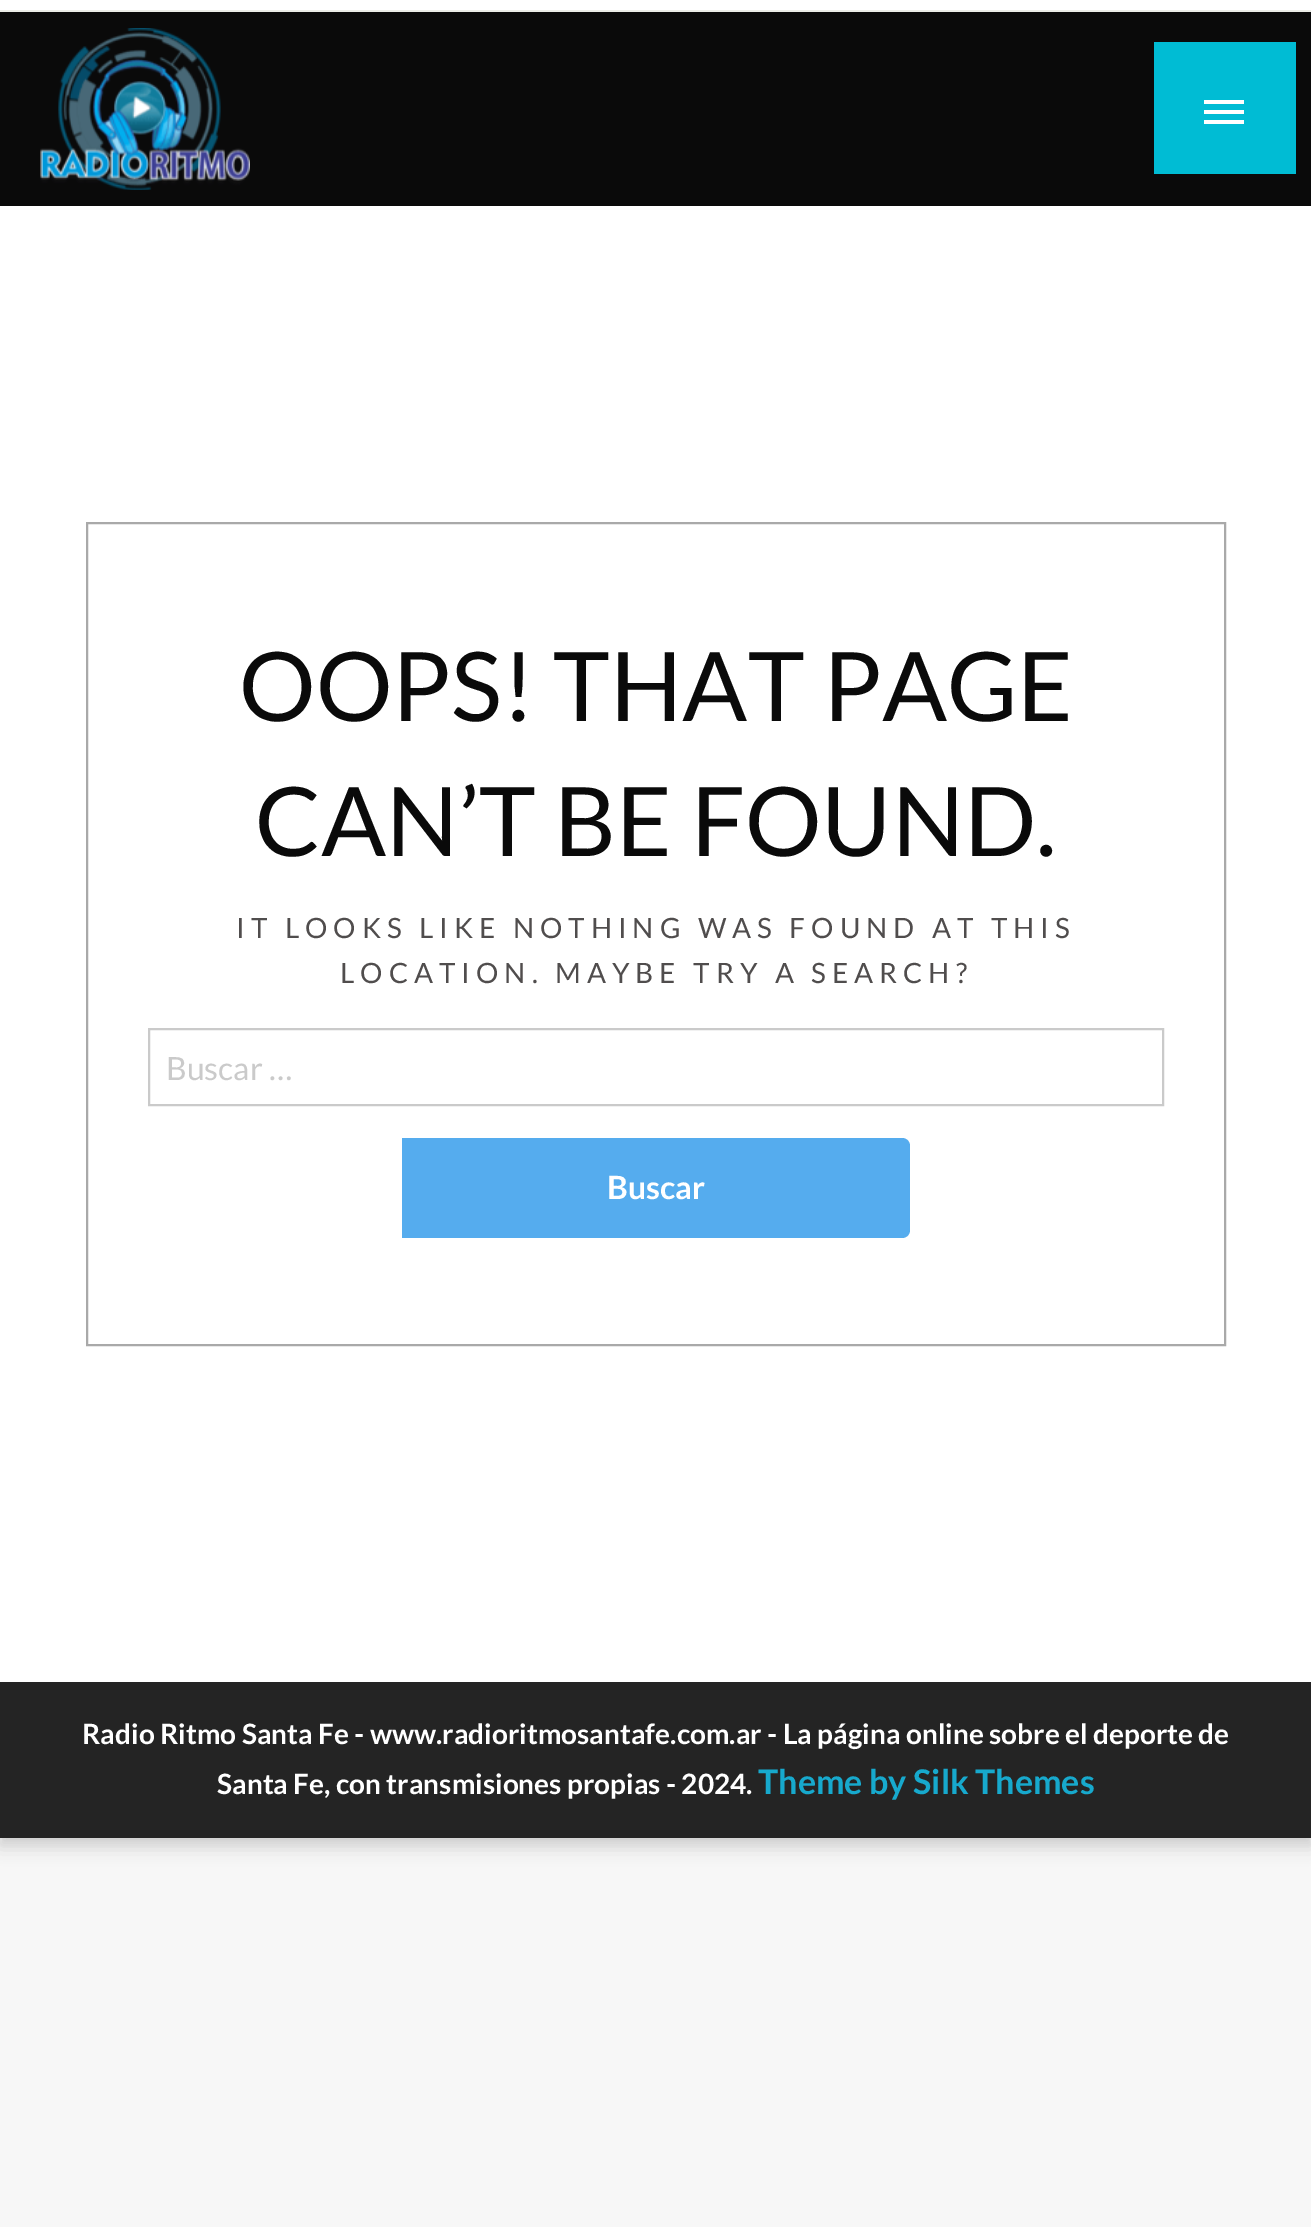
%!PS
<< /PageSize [1311 2227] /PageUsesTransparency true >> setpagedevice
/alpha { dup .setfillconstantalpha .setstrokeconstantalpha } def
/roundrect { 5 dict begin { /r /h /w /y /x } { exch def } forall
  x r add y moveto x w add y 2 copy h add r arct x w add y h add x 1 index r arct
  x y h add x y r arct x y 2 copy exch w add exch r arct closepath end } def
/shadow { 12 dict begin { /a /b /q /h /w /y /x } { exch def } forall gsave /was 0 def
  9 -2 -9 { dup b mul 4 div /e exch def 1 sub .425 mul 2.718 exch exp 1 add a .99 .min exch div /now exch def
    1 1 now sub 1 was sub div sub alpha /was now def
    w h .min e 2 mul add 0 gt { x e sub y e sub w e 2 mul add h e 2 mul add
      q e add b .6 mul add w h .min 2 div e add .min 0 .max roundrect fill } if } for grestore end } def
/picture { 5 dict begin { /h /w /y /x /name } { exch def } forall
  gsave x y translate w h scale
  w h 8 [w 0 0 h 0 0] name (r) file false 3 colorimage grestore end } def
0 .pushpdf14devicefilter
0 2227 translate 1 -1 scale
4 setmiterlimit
0.969 setgray
0 0 1311 2227 rectfill
0 setgray
0 6 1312 1838 0 10 0.09 shadow
0 8 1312 1838 0 8 0.1 shadow
1 setgray
0 0 1311 10 rectfill
0.925 0.929 0.906 setrgbcolor
0 10 1311 2 rectfill
0.039 setgray
0 12 1311 194 rectfill
(img1.rgb) 40 28 210 162 picture
0 0.737 0.831 setrgbcolor
1154 42 142 132 rectfill
1 setgray
1204 100 40 4 rectfill
1204 110 40 4 rectfill
1204 120 40 4 rectfill
0 206 1311 1476 rectfill
0.663 setgray
2 setlinewidth
87 523 1138 822 rectstroke
/Lato-Regular [96 0 0 -96 0 0] selectfont
0.039 setgray
239 721 moveto (OOPS! THAT PAGE) show
255 856 moveto (CAN’T BE FOUND.) show
/Lato-Regular [28 0 0 -28 0 0] selectfont
0.314 0.302 0.302 setrgbcolor
236 938 moveto 6 0 (IT LOOKS LIKE NOTHING WAS FOUND AT THIS) ashow
340 983 moveto 6 0 (LOCATION. MAYBE TRY A SEARCH?) ashow
0.792 setgray
149 1029 1014 76 rectstroke
/Lato-Regular [32 0 0 -32 0 0] selectfont
166 1080 moveto (Buscar …) show
0.333 0.675 0.933 setrgbcolor
newpath 402 1138 moveto 902 1138 lineto 906.5 1138 910 1141.5 910 1146 curveto 910 1230 lineto 910 1234.5 906.5 1238 902 1238 curveto 402 1238 lineto closepath fill
/Lato-Bold [32 0 0 -32 0 0] selectfont
1 setgray
607 1199 moveto (Buscar) show
0.141 setgray
0 1682 1311 156 rectfill
/Lato-Bold [28 0 0 -28 0 0] selectfont
1 setgray
82 1744 moveto (Radio Ritmo Santa Fe - www.radioritmosantafe.com.ar - La página online sobre el deporte de) show
217 1794 moveto (Santa Fe, con transmisiones propias - 2024.) show
/Lato-Bold [34 0 0 -34 0 0] selectfont
0.09 0.663 0.804 setrgbcolor
758 1794 moveto (Theme by Silk Themes) show
.poppdf14devicefilter showpage
